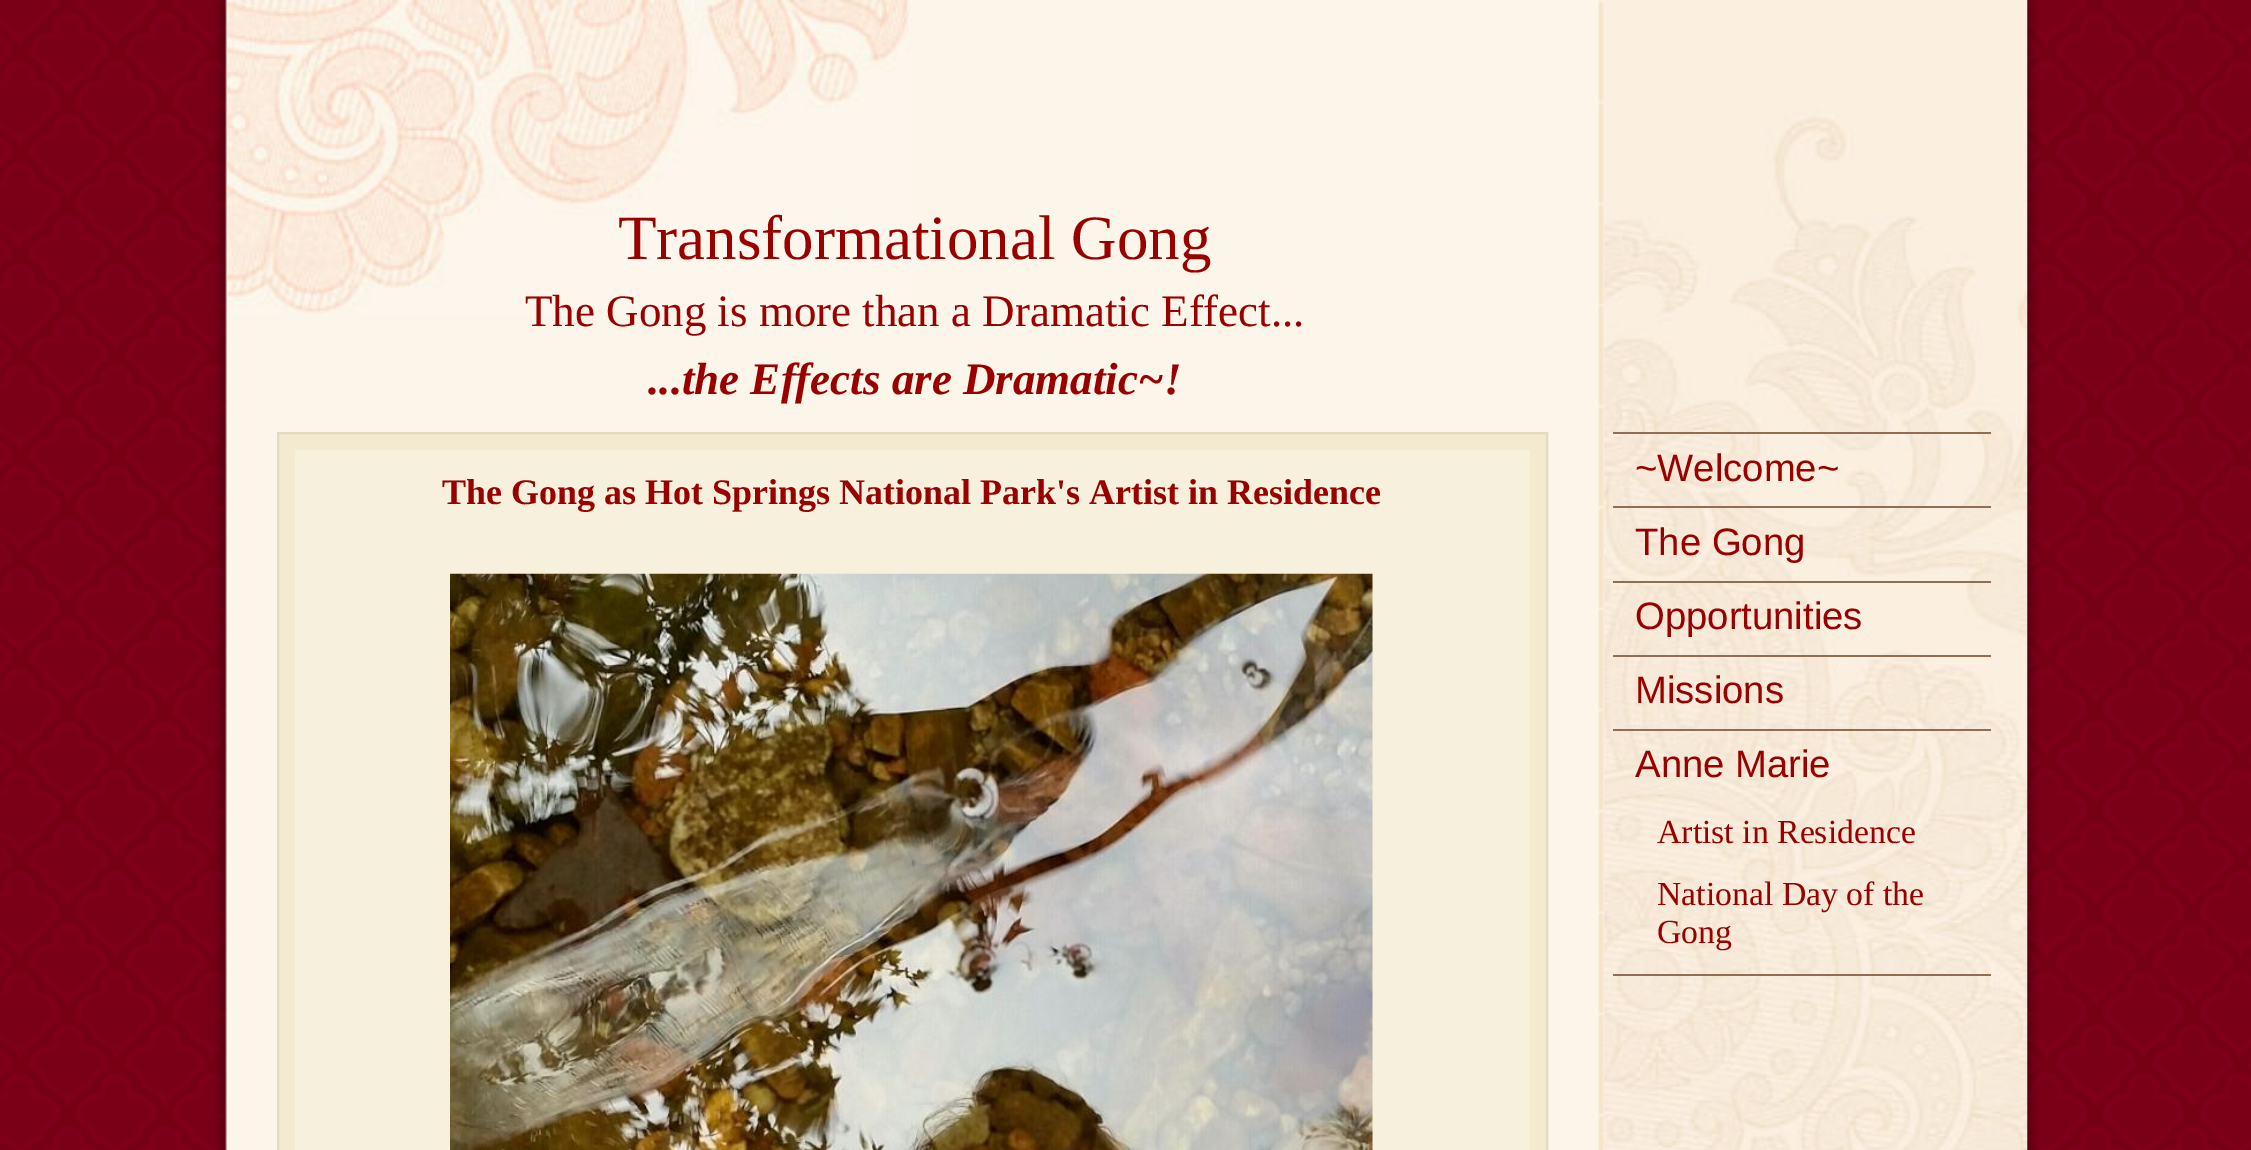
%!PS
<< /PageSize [2251 1150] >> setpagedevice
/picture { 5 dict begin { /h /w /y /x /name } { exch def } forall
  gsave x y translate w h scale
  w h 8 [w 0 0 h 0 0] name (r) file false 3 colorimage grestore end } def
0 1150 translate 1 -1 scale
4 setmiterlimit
1 setgray
0 0 2251 1150 rectfill
(img1.rgb) 0 0 2251 1150 picture
(img2.rgb) 1604 0 424 1150 picture
(img3.rgb) 227 0 686 315 picture
/LiberationSerif-Regular [63 0 0 -63 0 0] selectfont
0.6 0 0 setrgbcolor
618 259 moveto (Transformational Gong) show
/LiberationSerif-Regular [45 0 0 -45 0 0] selectfont
525 326 moveto (The Gong is more than a Dramatic Effect...) show
/LiberationSerif-BoldItalic [45 0 0 -45 0 0] selectfont
648 394 moveto (...the Effects are Dramatic~!) show
0.957 0.918 0.812 setrgbcolor
newpath 278 433 moveto 1547 433 lineto 1547 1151 lineto 278 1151 lineto closepath gsave fill grestore
0.898 0.855 0.733 setrgbcolor
2 setlinewidth
stroke
0.969 0.941 0.867 setrgbcolor
295 450 1235 700 rectfill
/LiberationSerif-Bold [36 0 0 -36 0 0] selectfont
0.6 0 0 setrgbcolor
442 504 moveto (The Gong as Hot Springs National Park's Artist in Residence) show
(img4.rgb) 450 573 923 577 picture
0.557 0.435 0.318 setrgbcolor
1613 432 378 2 rectfill
1613 506 378 2 rectfill
/LiberationSans-Regular [38.25 0 0 -38.25 0 0] selectfont
0.6 0 0 setrgbcolor
1635 481 moveto (~Welcome~) show
0.557 0.435 0.318 setrgbcolor
1613 581 378 2 rectfill
0.6 0 0 setrgbcolor
1635 555 moveto (The Gong) show
0.557 0.435 0.318 setrgbcolor
1613 655 378 2 rectfill
0.6 0 0 setrgbcolor
1635 629 moveto (Opportunities) show
0.557 0.435 0.318 setrgbcolor
1613 729 378 2 rectfill
0.6 0 0 setrgbcolor
1635 703 moveto (Missions) show
1635 777 moveto (Anne Marie) show
0.557 0.435 0.318 setrgbcolor
1613 974 378 2 rectfill
/LiberationSerif-Regular [33.75 0 0 -33.75 0 0] selectfont
0.6 0 0 setrgbcolor
1657 843 moveto (Artist in Residence) show
1657 905 moveto (National Day of the) show
1657 943 moveto (Gong) show
showpage
